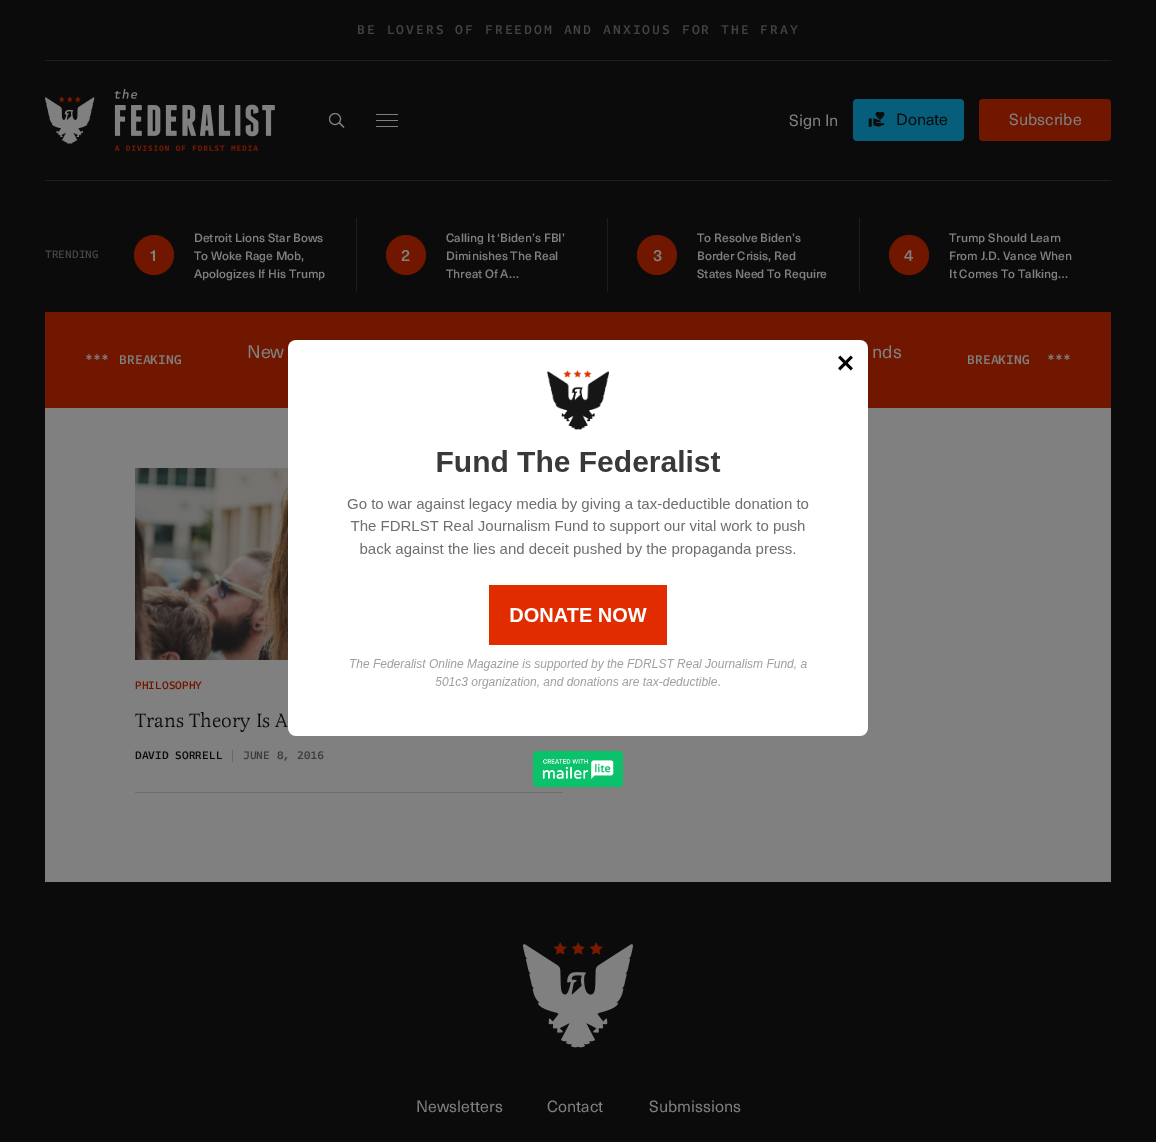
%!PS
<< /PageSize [1156 1142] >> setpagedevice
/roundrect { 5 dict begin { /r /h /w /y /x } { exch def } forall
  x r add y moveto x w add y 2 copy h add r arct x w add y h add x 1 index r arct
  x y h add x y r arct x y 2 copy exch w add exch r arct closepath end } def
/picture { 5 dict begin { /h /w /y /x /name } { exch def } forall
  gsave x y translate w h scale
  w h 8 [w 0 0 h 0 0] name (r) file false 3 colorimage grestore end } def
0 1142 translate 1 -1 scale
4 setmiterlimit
0.043 setgray
0 0 1156 1142 rectfill
0.114 setgray
45 60 1066 1 rectfill
/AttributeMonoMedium-Medium [14 0 0 -14 0 0] selectfont
0.267 setgray
357 34 moveto 2 0 (BE LOVERS OF FREEDOM AND ANXIOUS FOR THE FRAY) ashow
0.114 setgray
45 180 1066 1 rectfill
(img1.rgb) 45 89 230 62 picture
0.502 setgray
newpath 335 119 5.5 0 360 arc closepath stroke
newpath 339.5 122 moveto 344.5 127 lineto 343.5 128 lineto 338.5 123 lineto closepath fill
376 114 22 1 rectfill
376 120 22 1 rectfill
376 126 22 1 rectfill
/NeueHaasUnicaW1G-Regular [16 0 0 -16 0 0] selectfont
789 126 moveto (Sign In) show
0.024 0.369 0.478 setrgbcolor
853 99 111 42 4 roundrect fill
(img2.rgb) 868 111 17 16 picture
0.043 setgray
896 125 moveto (Donate) show
0.443 0.09 0 setrgbcolor
979 99 132 42 4 roundrect fill
0.502 setgray
1009 125 moveto (Subscribe) show
/AttributeMonoMedium-Medium [12 0 0 -12 0 0] selectfont
0.267 setgray
45 258 moveto (TRENDING) show
0.114 setgray
356 218 1 74 rectfill
0.443 0.09 0 setrgbcolor
newpath 154 255 20 0 360 arc closepath fill
/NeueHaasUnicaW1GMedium-Medium [16 0 0 -16 0 0] selectfont
0.502 setgray
149 261 moveto (1) show
/NeueHaasUnicaW1GMedium-Medium [12 0 0 -12 0 0] selectfont
194 242 moveto (Detroit Lions Star Bows) show
194 260 moveto (To Woke Rage Mob,) show
194 278 moveto (Apologizes If His Trump) show
0.114 setgray
607 218 1 74 rectfill
0.443 0.09 0 setrgbcolor
newpath 406 255 20 0 360 arc closepath fill
/NeueHaasUnicaW1GMedium-Medium [16 0 0 -16 0 0] selectfont
0.502 setgray
401 261 moveto (2) show
/NeueHaasUnicaW1GMedium-Medium [12 0 0 -12 0 0] selectfont
446 242 moveto (Calling It ‘Biden’s FBI’) show
446 260 moveto (Diminishes The Real) show
446 278 moveto (Threat Of A…) show
0.114 setgray
859 218 1 74 rectfill
0.443 0.09 0 setrgbcolor
newpath 657 255 20 0 360 arc closepath fill
/NeueHaasUnicaW1GMedium-Medium [16 0 0 -16 0 0] selectfont
0.502 setgray
653 261 moveto (3) show
/NeueHaasUnicaW1GMedium-Medium [12 0 0 -12 0 0] selectfont
697 242 moveto (To Resolve Biden’s) show
697 260 moveto (Border Crisis, Red) show
697 278 moveto (States Need To Require) show
0.443 0.09 0 setrgbcolor
newpath 909 255 20 0 360 arc closepath fill
/NeueHaasUnicaW1GMedium-Medium [16 0 0 -16 0 0] selectfont
0.502 setgray
904 261 moveto (4) show
/NeueHaasUnicaW1GMedium-Medium [12 0 0 -12 0 0] selectfont
949 242 moveto (Trump Should Learn) show
949 260 moveto (From J.D. Vance When) show
949 278 moveto (It Comes To Talking…) show
0.443 0.09 0 setrgbcolor
45 312 1066 96 rectfill
0.502 setgray
45 408 1066 474 rectfill
/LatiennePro-Regular [20 0 0 -20 0 0] selectfont
0.043 setgray
135 727 moveto (Trans Theory Is A) show
/AttributeMonoMedium-Medium [12 0 0 -12 0 0] selectfont
0.227 setgray
243 759 moveto (JUNE 8, 2016) show
(img3.rgb) 288 340 580 447 picture
/AttributeMonoMedium-Medium [14 0 0 -14 0 0] selectfont
0.502 setgray
85 364 moveto (***) show
119 364 moveto (BREAKING) show
/NeueHaasUnicaW1G-Regular [18 0 0 -18 0 0] selectfont
247 358 moveto (New) show
872 358 moveto (nds) show
/AttributeMonoMedium-Medium [14 0 0 -14 0 0] selectfont
967 364 moveto (BREAKING) show
1047 364 moveto (***) show
0.427 setgray
135 792 428 1 rectfill
(img4.rgb) 135 468 153 192 picture
/AttributeMonoMedium-Medium [12 0 0 -12 0 0] selectfont
0.443 0.09 0 setrgbcolor
135 689 moveto (PHILOSOPHY) show
0.043 setgray
135 759 moveto (DAVID SORRELL) show
0.408 setgray
232 750 1 12 rectfill
(img5.rgb) 523 942 110 106 picture
/NeueHaasUnicaW1G-Regular [16 0 0 -16 0 0] selectfont
0.502 setgray
416 1112 moveto (Newsletters) show
547 1112 moveto (Contact) show
649 1112 moveto (Submissions) show
showpage
